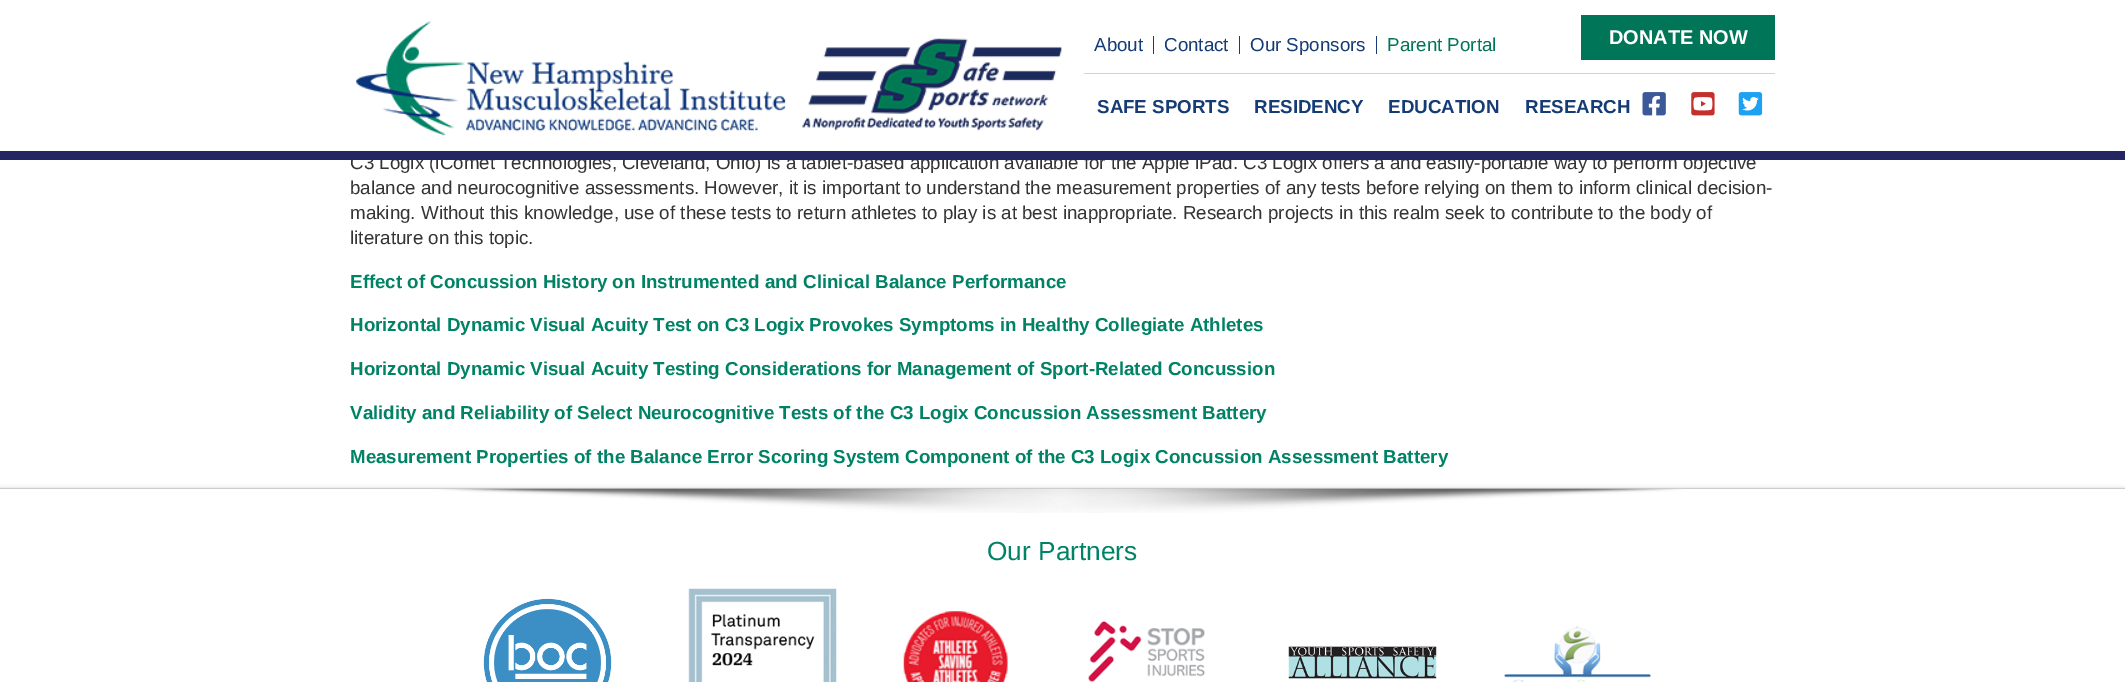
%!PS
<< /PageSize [2125 682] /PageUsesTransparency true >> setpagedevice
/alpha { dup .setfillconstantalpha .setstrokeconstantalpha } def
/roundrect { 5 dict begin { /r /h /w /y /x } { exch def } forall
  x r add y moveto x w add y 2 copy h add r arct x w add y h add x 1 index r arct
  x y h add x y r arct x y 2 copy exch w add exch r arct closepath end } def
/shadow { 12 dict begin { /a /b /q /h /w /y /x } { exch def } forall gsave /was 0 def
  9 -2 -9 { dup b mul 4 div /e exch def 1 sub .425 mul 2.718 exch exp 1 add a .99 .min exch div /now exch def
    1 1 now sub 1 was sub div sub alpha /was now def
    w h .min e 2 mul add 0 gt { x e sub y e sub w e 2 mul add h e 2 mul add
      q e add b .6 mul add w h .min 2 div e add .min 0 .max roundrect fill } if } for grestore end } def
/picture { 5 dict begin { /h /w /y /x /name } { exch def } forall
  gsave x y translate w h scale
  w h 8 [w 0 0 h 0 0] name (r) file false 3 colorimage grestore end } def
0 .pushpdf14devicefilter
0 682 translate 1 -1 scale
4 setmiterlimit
1 setgray
0 0 2125 682 rectfill
/LiberationSans-Regular [18.75 0 0 -18.75 0 0] selectfont
0.204 setgray
350 169 moveto (C3 Logix \(iComet Technologies, Cleveland, Ohio\) is a tablet-based application available for the Apple iPad. C3 Logix offers a and easily-portable way to perform objective) show
0.141 0.149 0.38 setrgbcolor
0 151 2125 9 rectfill
(img1.rgb) 356 21 706 115 picture
0.086 0.235 0.459 setrgbcolor
1153 36 1 18 rectfill
1094 51 moveto (About) show
1239 36 1 18 rectfill
1164 51 moveto (Contact) show
1376 36 1 18 rectfill
1250 51 moveto (Our Sponsors) show
0 0.459 0.345 setrgbcolor
1387 51 moveto (Parent Portal) show
1581 15 194 45 rectfill
/LiberationSans-Bold [20 0 0 -20 0 0] selectfont
1 setgray
1609 44 moveto (DONATE NOW) show
0.824 setgray
1084 73 691 1 rectfill
/LiberationSans-Bold [18.75 0 0 -18.75 0 0] selectfont
0.086 0.235 0.459 setrgbcolor
1097 113 moveto (SAFE SPORTS) show
1254 113 moveto (RESIDENCY) show
1388 113 moveto (EDUCATION) show
1525 113 moveto (RESEARCH) show
(img2.rgb) 1642 92 24 24 picture
(img3.rgb) 1691 92 24 24 picture
(img4.rgb) 1738 92 25 24 picture
/LiberationSans-Regular [18.75 0 0 -18.75 0 0] selectfont
0.204 setgray
350 194 moveto (balance and neurocognitive assessments. However, it is important to understand the measurement properties of any tests before relying on them to inform clinical decision-) show
350 219 moveto (making. Without this knowledge, use of these tests to return athletes to play is at best inappropriate. Research projects in this realm seek to contribute to the body of) show
350 244 moveto (literature on this topic.) show
/LiberationSans-Bold [18.75 0 0 -18.75 0 0] selectfont
0 0.51 0.396 setrgbcolor
350 288 moveto (Effect of Concussion History on Instrumented and Clinical Balance Performance) show
350 331 moveto (Horizontal Dynamic Visual Acuity Test on C3 Logix Provokes Symptoms in Healthy Collegiate Athletes) show
350 375 moveto (Horizontal Dynamic Visual Acuity Testing Considerations for Management of Sport-Related Concussion) show
350 419 moveto (Validity and Reliability of Select Neurocognitive Tests of the C3 Logix Concussion Assessment Battery) show
350 463 moveto (Measurement Properties of the Balance Error Scoring System Component of the C3 Logix Concussion Assessment Battery) show
0.851 setgray
0 488 2125 1 rectfill
0.753 setgray
0 489 2125 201 0 2.5 1 shadow
1 setgray
0 489 2125 193 rectfill
(img5.rgb) 438 488 1245 25 picture
/LiberationSans-Regular [26.25 0 0 -26.25 0 0] selectfont
0 0.51 0.396 setrgbcolor
987 560 moveto (Our Partners) show
(img6.rgb) 483 598 129 84 picture
(img7.rgb) 688 588 149 94 picture
(img8.rgb) 903 611 105 71 picture
(img9.rgb) 1088 621 117 61 picture
(img10.rgb) 1288 646 149 33 picture
(img11.rgb) 1504 626 148 56 picture
.poppdf14devicefilter showpage
